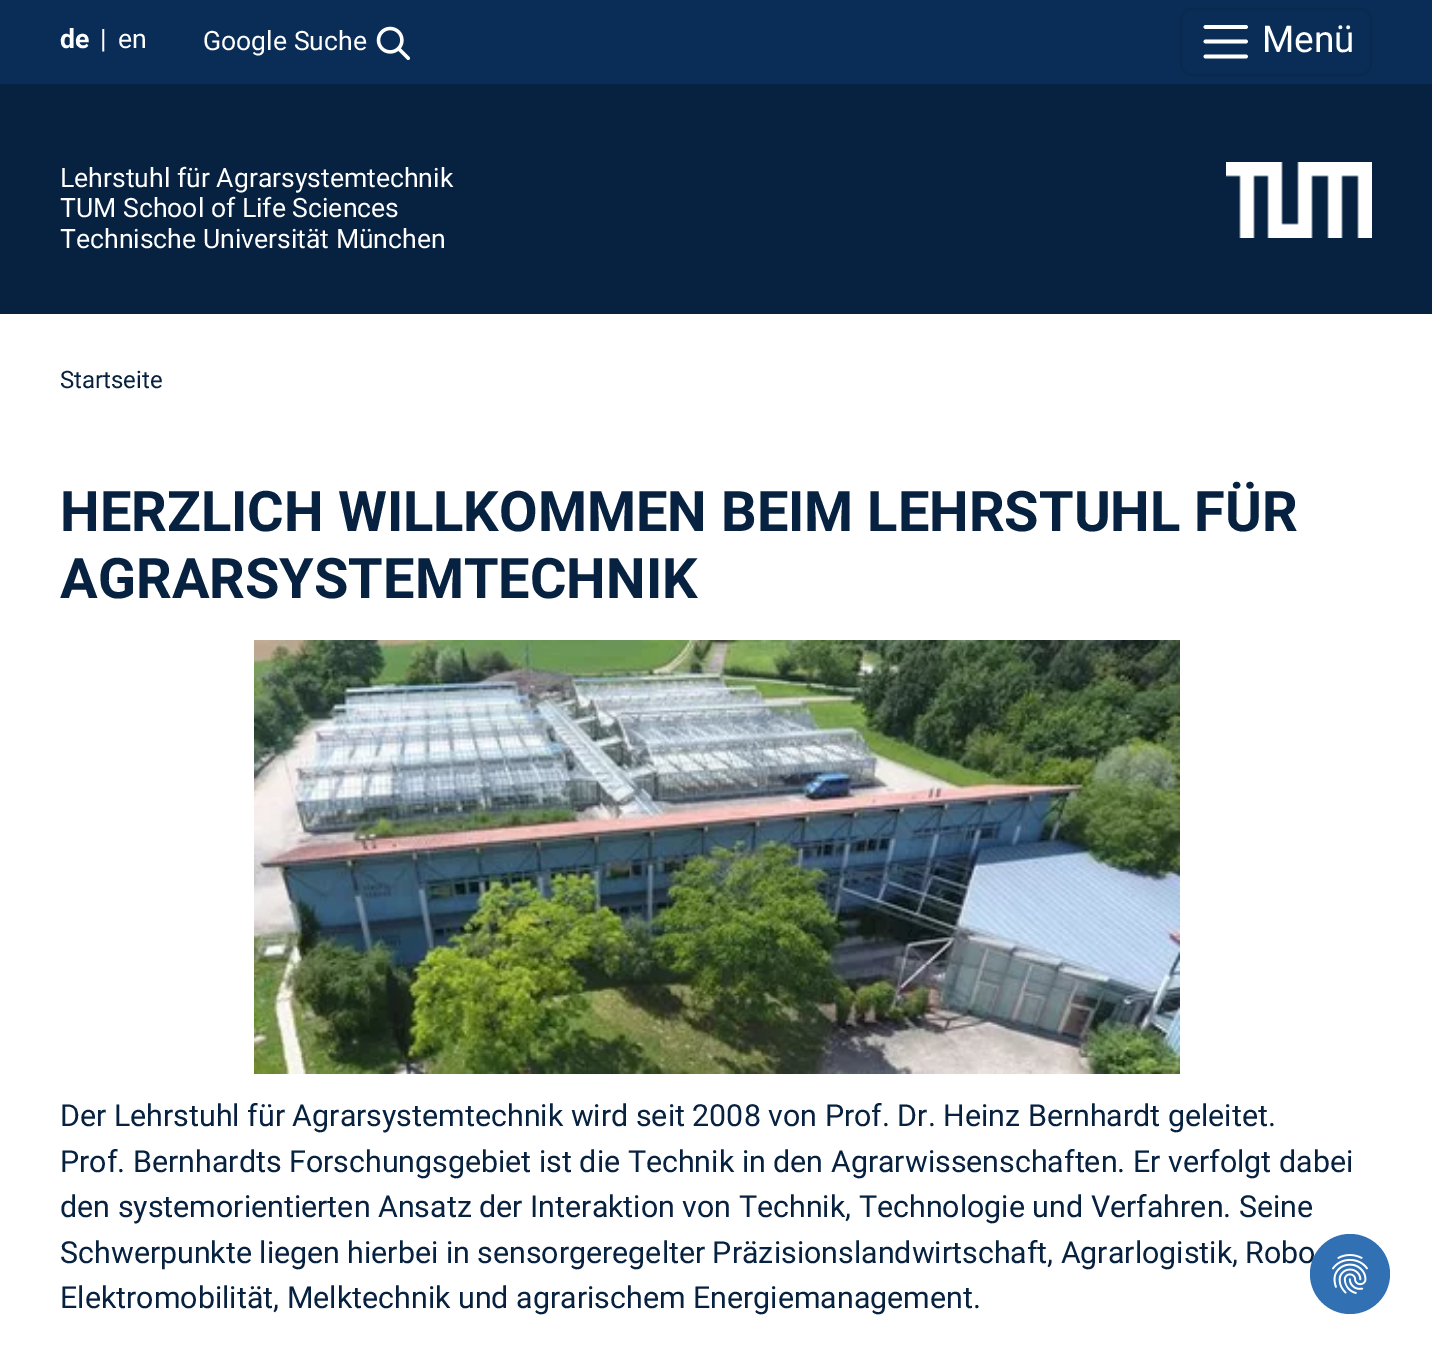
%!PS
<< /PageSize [1432 1356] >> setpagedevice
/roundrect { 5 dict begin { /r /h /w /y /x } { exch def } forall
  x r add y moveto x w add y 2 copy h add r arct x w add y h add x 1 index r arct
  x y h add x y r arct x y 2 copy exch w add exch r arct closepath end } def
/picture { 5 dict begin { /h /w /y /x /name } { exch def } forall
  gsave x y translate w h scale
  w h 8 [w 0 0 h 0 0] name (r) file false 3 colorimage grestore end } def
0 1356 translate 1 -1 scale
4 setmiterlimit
1 setgray
0 0 1432 1356 rectfill
0.039 0.176 0.341 setrgbcolor
0 0 1432 84 rectfill
/Roboto-Bold [26.6 0 0 -26.6 0 0] selectfont
1 setgray
60 48 moveto (de) show
/Roboto-Regular [26.6 0 0 -26.6 0 0] selectfont
100 48 moveto (|) show
118 48 moveto (en) show
203 50 moveto (Google Suche) show
(img1.rgb) 376 26 34 34 picture
0.035 0.161 0.306 setrgbcolor
2 setlinewidth
1181 9 190 66 11 roundrect stroke
1 setgray
3.7 setlinewidth
1 setlinecap
newpath 1205.5 27 moveto 1246 27 lineto 1205.5 41.5 moveto 1246 41.5 lineto 1205.5 56.5 moveto 1246 56.5 lineto stroke
/Roboto-Regular [37 0 0 -37 0 0] selectfont
1262 52 moveto (Menü) show
0.027 0.129 0.251 setrgbcolor
0 84 1432 230 rectfill
/Roboto-Regular [26.6 0 0 -26.6 0 0] selectfont
1 setgray
60 187 moveto (Lehrstuhl für Agrarsystemtechnik) show
60 217 moveto (TUM School of Life Sciences) show
60 248 moveto (Technische Universität München) show
(img2.rgb) 1226 162 146 76 picture
/Roboto-Regular [24 0 0 -24 0 0] selectfont
0.027 0.129 0.251 setrgbcolor
60 388 moveto (Startseite) show
/Roboto-Bold [56 0 0 -56 0 0] selectfont
60 531 moveto (HERZLICH WILLKOMMEN BEIM LEHRSTUHL FÜR) show
60 598 moveto (AGRARSYSTEMTECHNIK) show
(img3.rgb) 254 640 926 434 picture
/Roboto-Regular [30.4 0 0 -30.4 0 0] selectfont
60 1126 moveto (Der Lehrstuhl für Agrarsystemtechnik wird seit 2008 von Prof. Dr. Heinz Bernhardt geleitet.) show
60 1172 moveto (Prof. Bernhardts Forschungsgebiet ist die Technik in den Agrarwissenschaften. Er verfolgt dabei) show
60 1217 moveto (den systemorientierten Ansatz der Interaktion von Technik, Technologie und Verfahren. Seine) show
60 1263 moveto -0.25 0 32 (Schwerpunkte liegen hierbei in sensorgeregelter Präzisionslandwirtschaft, Agrarlogistik, Robo) widthshow
60 1308 moveto (Elektromobilität, Melktechnik und agrarischem Energiemanagement.) show
0.188 0.439 0.702 setrgbcolor
newpath 1350 1274 40 0 360 arc closepath fill
(img4.rgb) 1332 1254 36 40 picture
showpage
